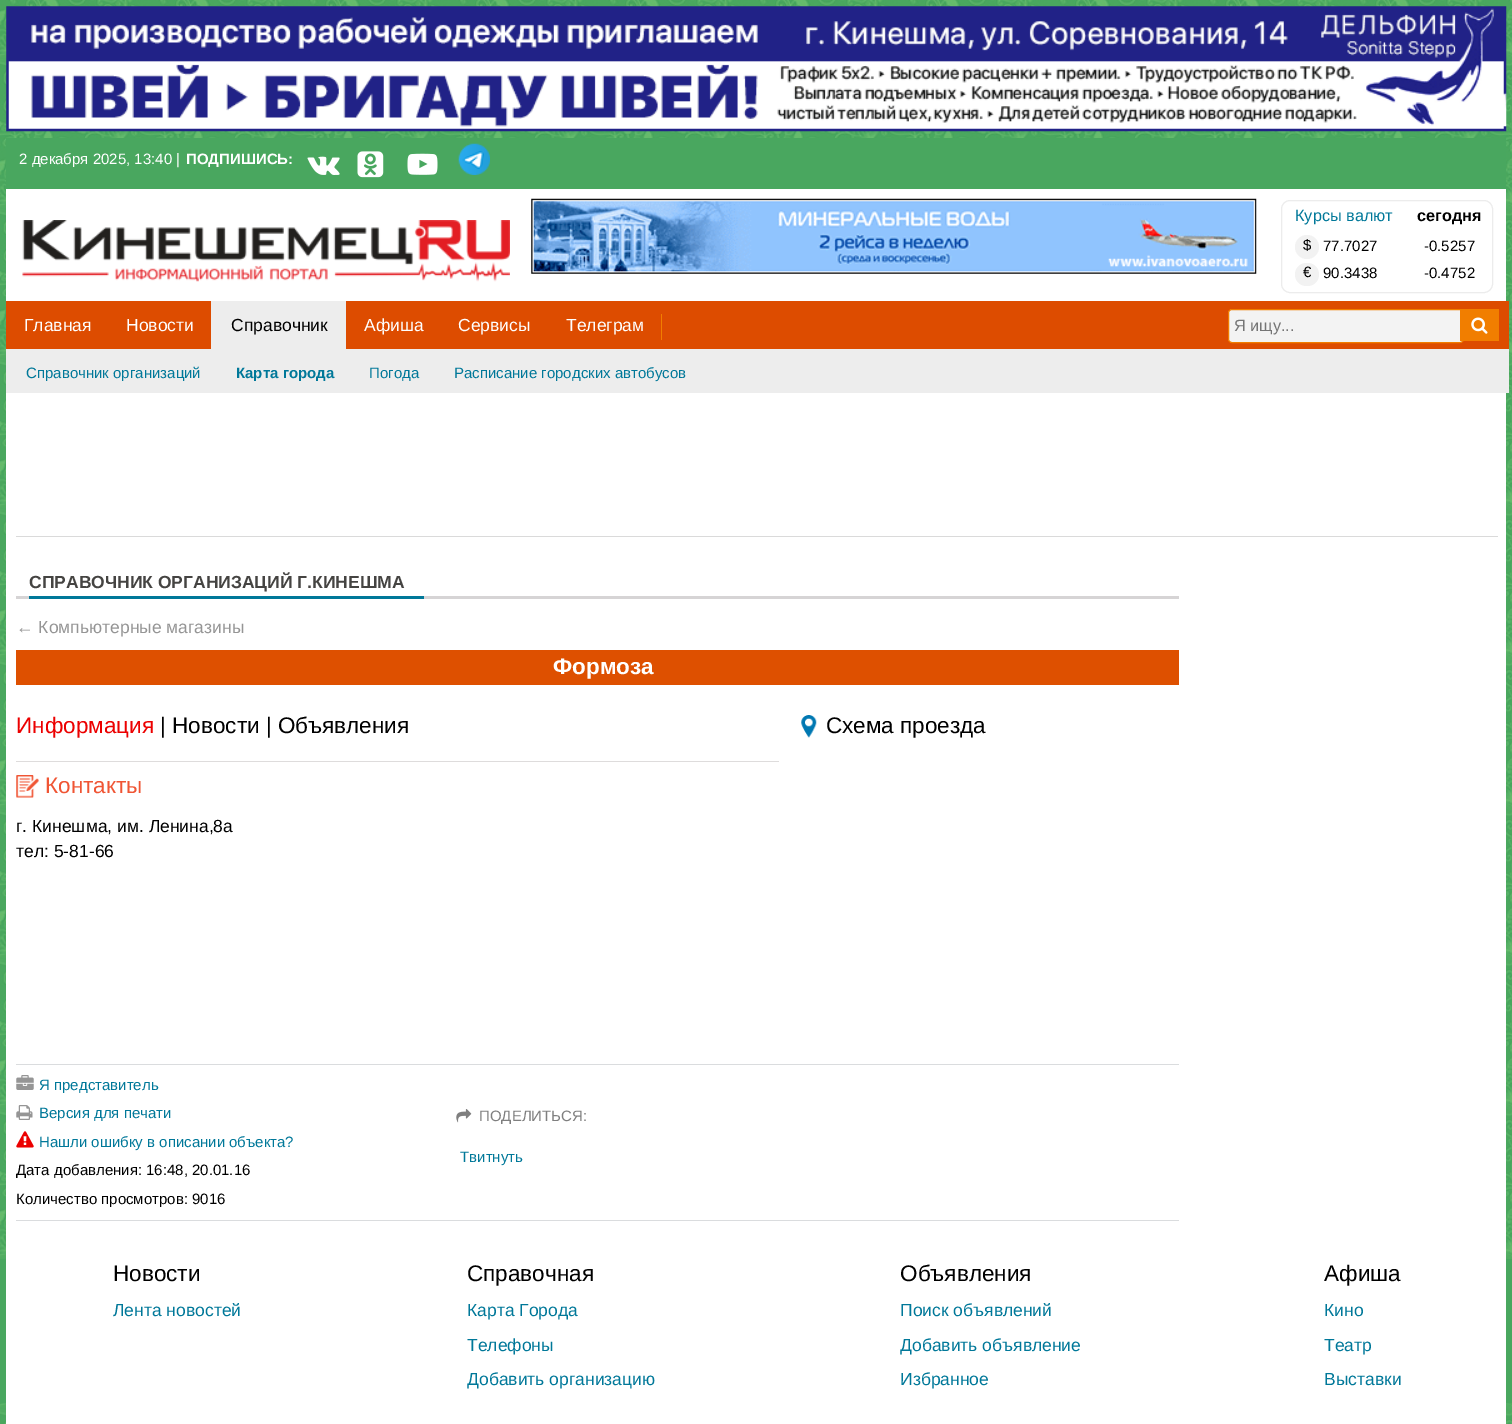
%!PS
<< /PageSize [1512 1424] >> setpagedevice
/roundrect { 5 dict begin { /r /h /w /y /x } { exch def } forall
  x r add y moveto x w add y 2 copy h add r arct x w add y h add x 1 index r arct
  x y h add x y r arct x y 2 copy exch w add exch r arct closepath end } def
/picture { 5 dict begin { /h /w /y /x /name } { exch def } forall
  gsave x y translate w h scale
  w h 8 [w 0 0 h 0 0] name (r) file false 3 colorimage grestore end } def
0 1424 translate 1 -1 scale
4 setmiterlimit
1 setgray
0 0 1512 1424 rectfill
(img1.rgb) 0 0 1512 1424 picture
(img2.rgb) 6 6 1501 126 picture
0.286 0.655 0.373 setrgbcolor
6 138 1500 51 rectfill
/LiberationSans-Regular [15 0 0 -15 0 0] selectfont
1 setgray
19 164 moveto (2 декабря 2025, 13:40 |) show
/LiberationSans-Bold [15 0 0 -15 0 0] selectfont
186 164 moveto (ПОДПИШИСЬ:) show
(img3.rgb) 307 156 33 19 picture
(img4.rgb) 357 151 27 27 picture
(img5.rgb) 407 153 31 22 picture
(img6.rgb) 458 143 32 32 picture
6 189 1500 1070 rectfill
(img7.rgb) 22 220 488 62 picture
(img8.rgb) 531 198 726 76 picture
0.925 setgray
1281.5 200.5 211 92 8.5 roundrect stroke
/LiberationSans-Regular [16.25 0 0 -16.25 0 0] selectfont
0 0.471 0.6 setrgbcolor
1295 221 moveto (Курсы валют) show
/LiberationSans-Bold [16.25 0 0 -16.25 0 0] selectfont
0 setgray
1417 221 moveto (сегодня) show
0.949 setgray
newpath 1307 247 12 0 360 arc closepath fill
/LiberationSans-Regular [15 0 0 -15 0 0] selectfont
0 setgray
1303 250 moveto ($) show
1323 251 moveto (77.7027) show
1424 251 moveto (-0.5257) show
0.949 setgray
1295 263 24 23 11.5 roundrect fill
0 setgray
1303 277 moveto (€) show
1323 278 moveto (90.3438) show
1424 278 moveto (-0.4752) show
0.867 0.298 0 setrgbcolor
6 301 1503 48 rectfill
/LiberationSans-Regular [17.5 0 0 -17.5 0 0] selectfont
1 setgray
24 331 moveto (Главная) show
126 331 moveto (Новости) show
0.929 setgray
211 301 135 48 rectfill
0 setgray
231 331 moveto (Справочник) show
1 setgray
364 331 moveto (Афиша) show
0.945 0.494 0 setrgbcolor
661 314 1 26 rectfill
1 setgray
458 331 moveto (Сервисы) show
566 331 moveto (Телеграм) show
0.953 setgray
1228.5 309.5 235 33 3.5 roundrect gsave fill grestore
0.945 0.494 0 setrgbcolor
stroke
/LiberationSans-Regular [16.25 0 0 -16.25 0 0] selectfont
0.459 setgray
1234 331 moveto (Я ищу...) show
0.945 0.494 0 setrgbcolor
1460 309 39 32 rectfill
(img9.rgb) 1471 317 17 17 picture
0.929 setgray
6 349 1503 44 rectfill
/LiberationSans-Regular [15 0 0 -15 0 0] selectfont
0 0.471 0.6 setrgbcolor
26 378 moveto (Справочник организаций) show
/LiberationSans-Bold [15 0 0 -15 0 0] selectfont
236 378 moveto (Карта города) show
/LiberationSans-Regular [15 0 0 -15 0 0] selectfont
369 378 moveto (Погода) show
454 378 moveto (Расписание городских автобусов) show
0.855 setgray
16 536 1482 1 rectfill
0.839 0.831 0.835 setrgbcolor
16 596 1163 3 rectfill
0 0.471 0.6 setrgbcolor
29 596 395 3 rectfill
/LiberationSans-Bold [17.5 0 0 -17.5 0 0] selectfont
0.271 0.267 0.259 setrgbcolor
29 588 moveto (СПРАВОЧНИК ОРГАНИЗАЦИЙ Г.КИНЕШМА) show
/LiberationSans-Regular [17.5 0 0 -17.5 0 0] selectfont
0.584 setgray
16 633 moveto (← Компьютерные магазины) show
0.871 0.314 0 setrgbcolor
16 650 1163 35 rectfill
/LiberationSans-Bold [22.5 0 0 -22.5 0 0] selectfont
1 setgray
553 674 moveto (Формоза) show
/LiberationSans-Regular [22.5 0 0 -22.5 0 0] selectfont
0.925 0 0 setrgbcolor
16 733 moveto (Информация) show
0 setgray
160 733 moveto (| Новости | Объявления) show
(img10.rgb) 801 715 16 23 picture
826 733 moveto (Схема проезда) show
0.871 0.863 0.863 setrgbcolor
16 761 763 1 rectfill
(img11.rgb) 16 775 23 23 picture
0.941 0.333 0.204 setrgbcolor
45 793 moveto (Контакты) show
/LiberationSans-Regular [17.5 0 0 -17.5 0 0] selectfont
0 setgray
16 832 moveto (г. Кинешма, им. Ленина,8а) show
16 857 moveto (тел: 5-81-66) show
0.855 0.863 0.871 setrgbcolor
16 1064 1163 1 rectfill
16 1220 1163 1 rectfill
(img12.rgb) 16 1075 18 15 picture
/LiberationSans-Regular [15 0 0 -15 0 0] selectfont
0 0.471 0.6 setrgbcolor
39 1090 moveto (Я представитель) show
(img13.rgb) 16 1105 17 15 picture
39 1118 moveto (Версия для печати) show
(img14.rgb) 16 1131 18 17 picture
39 1147 moveto (Нашли ошибку в описании объекта?) show
0 setgray
16 1175 moveto (Дата добавления: 16:48, 20.01.16) show
16 1204 moveto (Количество просмотров: 9016) show
(img15.rgb) 456 1109 16 14 picture
0.498 setgray
479 1121 moveto (ПОДЕЛИТЬСЯ:) show
0 0.471 0.6 setrgbcolor
460 1162 moveto (Твитнуть) show
0.286 0.655 0.373 setrgbcolor
0 1259 1512 144 rectfill
1 setgray
6 1259 1500 165 rectfill
/LiberationSans-Regular [22.5 0 0 -22.5 0 0] selectfont
0 setgray
113 1281 moveto (Новости) show
/LiberationSans-Regular [17.5 0 0 -17.5 0 0] selectfont
0 0.471 0.6 setrgbcolor
113 1316 moveto (Лента новостей) show
/LiberationSans-Regular [22.5 0 0 -22.5 0 0] selectfont
0 setgray
467 1281 moveto (Справочная) show
/LiberationSans-Regular [17.5 0 0 -17.5 0 0] selectfont
0 0.471 0.6 setrgbcolor
467 1316 moveto (Карта Города) show
467 1351 moveto (Телефоны) show
467 1385 moveto (Добавить организацию) show
/LiberationSans-Regular [22.5 0 0 -22.5 0 0] selectfont
0 setgray
900 1281 moveto (Объявления) show
/LiberationSans-Regular [17.5 0 0 -17.5 0 0] selectfont
0 0.471 0.6 setrgbcolor
900 1316 moveto (Поиск объявлений) show
900 1351 moveto (Добавить объявление) show
900 1385 moveto (Избранное) show
/LiberationSans-Regular [22.5 0 0 -22.5 0 0] selectfont
0 setgray
1324 1281 moveto (Афиша) show
/LiberationSans-Regular [17.5 0 0 -17.5 0 0] selectfont
0 0.471 0.6 setrgbcolor
1324 1316 moveto (Кино) show
1324 1351 moveto (Театр) show
1324 1385 moveto (Выставки) show
showpage
